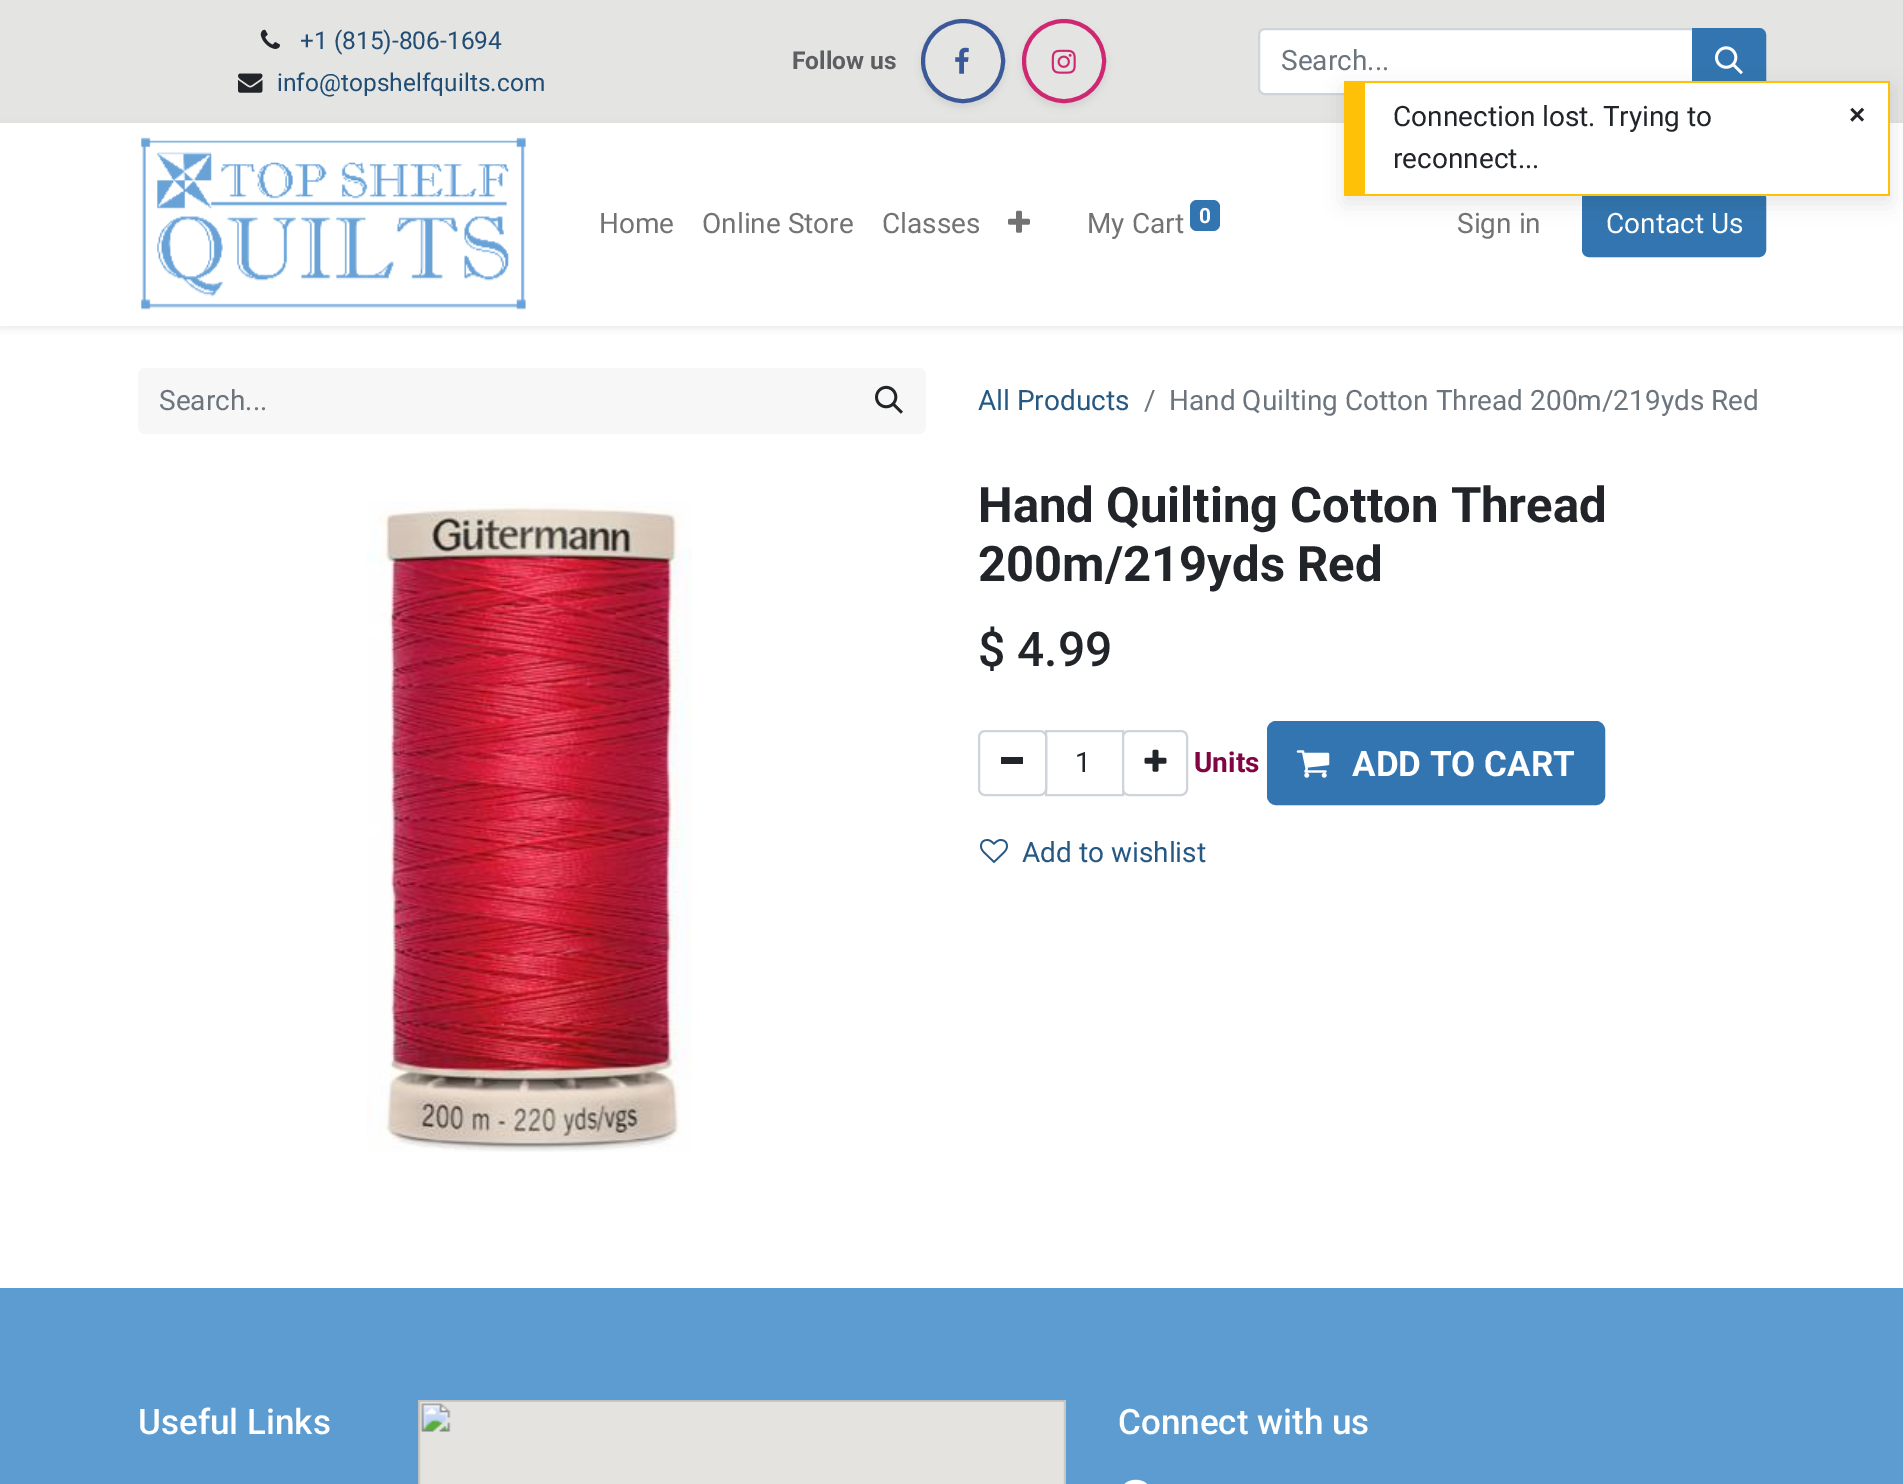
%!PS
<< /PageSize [1903 1484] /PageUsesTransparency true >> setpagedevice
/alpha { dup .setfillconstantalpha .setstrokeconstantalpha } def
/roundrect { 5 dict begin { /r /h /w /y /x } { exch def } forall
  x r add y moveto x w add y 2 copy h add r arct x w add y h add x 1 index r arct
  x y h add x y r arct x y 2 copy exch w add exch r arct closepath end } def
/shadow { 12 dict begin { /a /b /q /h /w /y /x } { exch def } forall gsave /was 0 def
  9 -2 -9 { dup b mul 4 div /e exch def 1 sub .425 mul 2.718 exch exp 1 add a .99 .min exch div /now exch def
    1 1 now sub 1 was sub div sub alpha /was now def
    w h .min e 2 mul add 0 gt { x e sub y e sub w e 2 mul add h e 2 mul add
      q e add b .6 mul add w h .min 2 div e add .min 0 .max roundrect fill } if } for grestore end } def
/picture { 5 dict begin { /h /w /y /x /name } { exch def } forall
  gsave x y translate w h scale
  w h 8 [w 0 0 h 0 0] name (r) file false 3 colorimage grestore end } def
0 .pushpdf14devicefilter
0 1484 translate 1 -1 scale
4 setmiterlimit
1 setgray
0 0 1903 1484 rectfill
0.894 0.894 0.886 setrgbcolor
0 0 1903 123 rectfill
(img1.rgb) 260 29 20 20 picture
/Roboto-Regular [24.5 0 0 -24.5 0 0] selectfont
0.129 0.302 0.455 setrgbcolor
300 49 moveto (+1 \(815\)-806-1694) show
(img2.rgb) 238 73 25 20 picture
277 91 moveto (info@topshelfquilts.com) show
/Roboto-Bold [24.5 0 0 -24.5 0 0] selectfont
0.361 0.369 0.38 setrgbcolor
792 69 moveto (Follow us) show
gsave
newpath 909 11 moveto 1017 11 lineto 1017 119 lineto 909 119 lineto closepath 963 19 moveto 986 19 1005 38 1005 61 curveto 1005 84 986 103 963 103 curveto 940 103 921 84 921 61 curveto 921 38 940 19 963 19 curveto closepath eoclip newpath
0 setgray
921 23 84 84 42 3.5 0.07 shadow
grestore
0.231 0.349 0.6 setrgbcolor
4 setlinewidth
newpath 963 61 40 0 360 arc closepath stroke
(img3.rgb) 955 47 14 27 picture
gsave
newpath 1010 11 moveto 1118 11 lineto 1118 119 lineto 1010 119 lineto closepath 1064 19 moveto 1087 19 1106 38 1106 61 curveto 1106 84 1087 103 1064 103 curveto 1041 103 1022 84 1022 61 curveto 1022 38 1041 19 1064 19 curveto closepath eoclip newpath
0 setgray
1022 23 84 84 42 3.5 0.07 shadow
grestore
0.812 0.157 0.447 setrgbcolor
newpath 1064 61 40 0 360 arc closepath stroke
(img4.rgb) 1051 49 25 25 picture
1 setgray
newpath 1265 29 moveto 1693 29 lineto 1693 94 lineto 1265 94 lineto 1261.5 94 1259 91.5 1259 88 curveto 1259 35 lineto 1259 31.5 1261.5 29 1265 29 curveto closepath gsave fill grestore
0.808 0.831 0.855 setrgbcolor
2 setlinewidth
stroke
/Roboto-Regular [28 0 0 -28 0 0] selectfont
0.424 0.459 0.49 setrgbcolor
1281 70 moveto (Search...) show
0.196 0.459 0.69 setrgbcolor
newpath 1693 29 moveto 1759 29 lineto 1762.5 29 1765 31.5 1765 35 curveto 1765 88 lineto 1765 91.5 1762.5 94 1759 94 curveto 1693 94 lineto closepath gsave fill grestore
stroke
(img5.rgb) 1715 46 28 29 picture
0 setgray
0 126 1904 203 0 3.5 0.07 shadow
1 setgray
0 123 1903 203 rectfill
(img6.rgb) 141 137 385 173 picture
0.451 setgray
599 233 moveto (Home) show
702 233 moveto (Online Store) show
882 233 moveto (Classes) show
(img7.rgb) 1008 210 22 23 picture
1087 233 moveto (My Cart) show
0.196 0.459 0.69 setrgbcolor
1190 200 30 31 7 roundrect fill
/Roboto-Bold [21 0 0 -21 0 0] selectfont
1 setgray
1199 223 moveto (0) show
/Roboto-Regular [28 0 0 -28 0 0] selectfont
0.451 setgray
1457 233 moveto (Sign in) show
0.196 0.459 0.69 setrgbcolor
1583 192 182 64 6 roundrect gsave fill grestore
stroke
1 setgray
1606 233 moveto (Contact Us) show
0.969 setgray
newpath 145 368 moveto 854 368 lineto 854 434 lineto 145 434 lineto 141 434 138 431 138 427 curveto 138 375 lineto 138 371 141 368 145 368 curveto closepath fill
0.424 0.459 0.49 setrgbcolor
159 410 moveto (Search...) show
0.969 setgray
newpath 852 368 moveto 919 368 lineto 923 368 926 371 926 375 curveto 926 427 lineto 926 431 923 434 919 434 curveto 852 434 lineto closepath fill
(img8.rgb) 875 385 28 29 picture
0.149 0.345 0.518 setrgbcolor
978 410 moveto (All Products) show
0.424 0.459 0.49 setrgbcolor
1144 410 moveto (/) show
1169 410 moveto (Hand Quilting Cotton Thread 200m/219yds Red) show
(img9.rgb) 367 501 325 651 picture
/Roboto-Bold [49 0 0 -49 0 0] selectfont
0.129 0.145 0.161 setrgbcolor
978 522 moveto (Hand Quilting Cotton Thread) show
978 581 moveto (200m/219yds Red) show
/Roboto-Medium [48 0 0 -48 0 0] selectfont
978 666 moveto ($ 4.99) show
0.808 0.831 0.855 setrgbcolor
1046 731 77 64 rectstroke
1 setgray
979 731 67 64 6 roundrect gsave fill grestore
0.808 0.831 0.855 setrgbcolor
stroke
0.129 0.145 0.161 setrgbcolor
1001 757 22 7 rectfill
/Roboto-Regular [28 0 0 -28 0 0] selectfont
1075 772 moveto (1) show
1 setgray
1123 731 64 64 6 roundrect gsave fill grestore
0.808 0.831 0.855 setrgbcolor
stroke
(img10.rgb) 1144 749 23 23 picture
/Roboto-Bold [28 0 0 -28 0 0] selectfont
0.506 0.02 0.255 setrgbcolor
1194 772 moveto (Units) show
0.196 0.459 0.69 setrgbcolor
1268 722 336 82 8 roundrect gsave fill grestore
stroke
(img11.rgb) 1296 750 34 28 picture
/Roboto-Bold [35 0 0 -35 0 0] selectfont
1 setgray
1352 776 moveto (ADD TO CART) show
(img12.rgb) 980 839 28 24 picture
/Roboto-Regular [28 0 0 -28 0 0] selectfont
0.149 0.345 0.518 setrgbcolor
1022 862 moveto (Add to wishlist) show
0.365 0.612 0.82 setrgbcolor
0 1288 1903 196 rectfill
/Roboto-Medium [35 0 0 -35 0 0] selectfont
1 setgray
138 1434 moveto (Useful Links) show
(img13.rgb) 418 1400 648 84 picture
1118 1434 moveto (Connect with us) show
(img14.rgb) 1124 1479 23 5 picture
0 setgray
1344 88 546 115 0 10.5 0.1 shadow
1 setgray
1365 83 523 111 rectfill
1 0.757 0.027 setrgbcolor
1365 81 525 2 rectfill
1888 81 2 115 rectfill
1365 194 525 2 rectfill
1344 81 21 115 rectfill
/Roboto-Regular [28 0 0 -28 0 0] selectfont
0.129 0.145 0.161 setrgbcolor
1393 126 moveto (Connection lost. Trying to) show
1393 168 moveto (reconnect...) show
/LiberationSans-Bold [28 0 0 -28 0 0] selectfont
1849 124 moveto (×) show
.poppdf14devicefilter showpage
